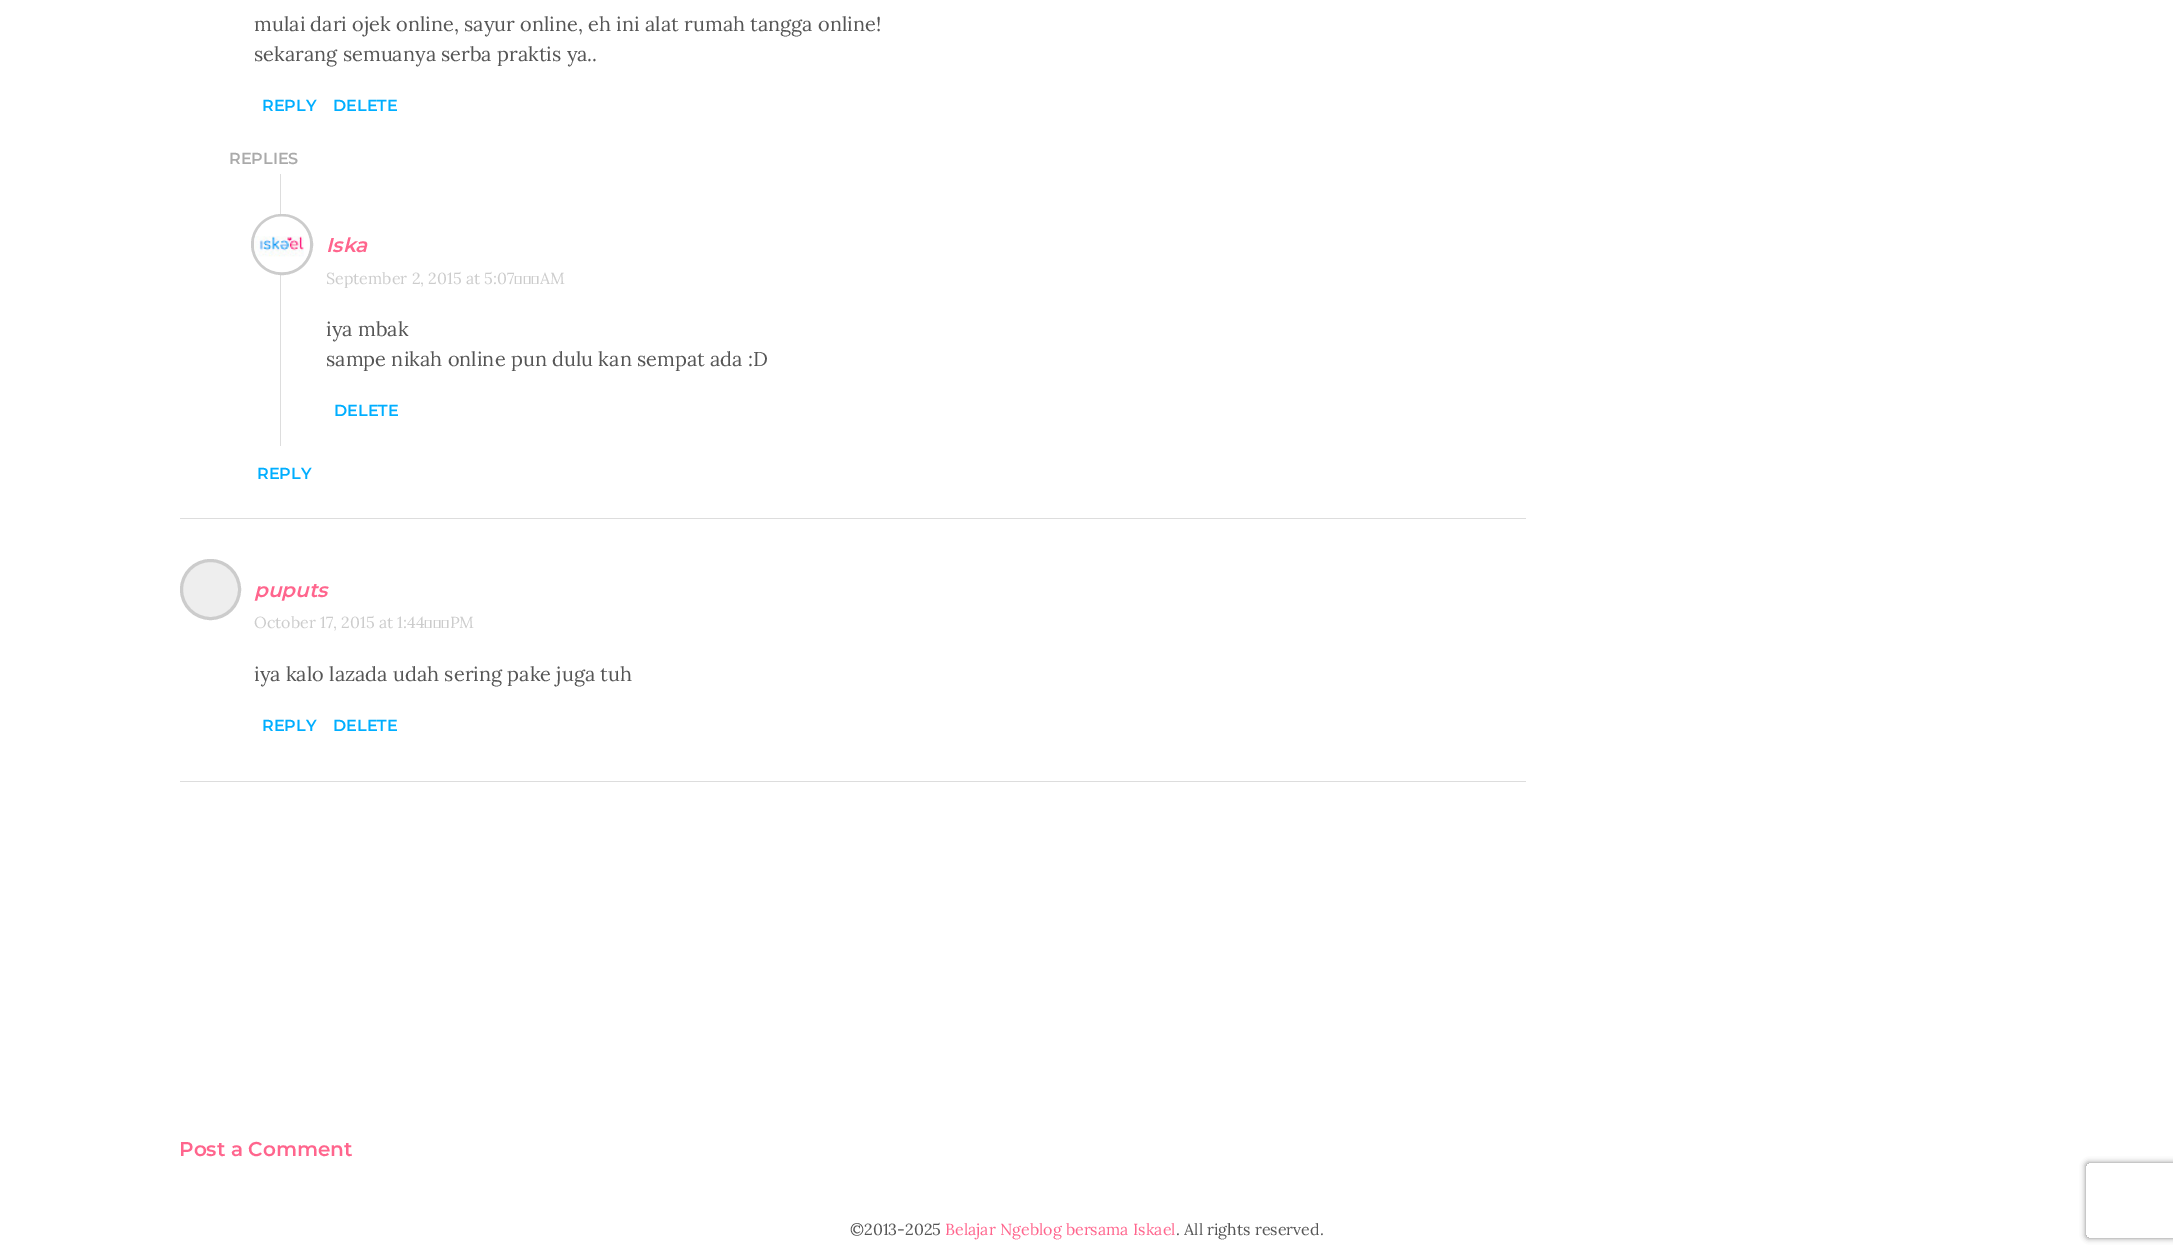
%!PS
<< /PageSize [2173 1255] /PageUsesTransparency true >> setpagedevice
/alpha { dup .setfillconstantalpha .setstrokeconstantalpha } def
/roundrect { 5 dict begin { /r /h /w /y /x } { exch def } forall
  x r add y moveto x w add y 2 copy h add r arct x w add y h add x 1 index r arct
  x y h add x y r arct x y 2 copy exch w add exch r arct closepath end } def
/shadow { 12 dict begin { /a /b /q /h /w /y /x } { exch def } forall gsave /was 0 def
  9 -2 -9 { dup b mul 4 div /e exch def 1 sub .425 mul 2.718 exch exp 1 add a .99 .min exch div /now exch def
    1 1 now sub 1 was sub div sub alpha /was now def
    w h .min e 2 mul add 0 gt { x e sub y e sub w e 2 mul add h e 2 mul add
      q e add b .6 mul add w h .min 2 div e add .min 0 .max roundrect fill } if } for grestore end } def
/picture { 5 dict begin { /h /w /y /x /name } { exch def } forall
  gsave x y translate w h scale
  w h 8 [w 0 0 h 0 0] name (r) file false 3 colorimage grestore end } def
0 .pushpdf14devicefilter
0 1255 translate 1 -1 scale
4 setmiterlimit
1 setgray
0 0 2173 1255 rectfill
0.867 setgray
180 518 1346 1 rectfill
/Lora-Regular [20 0 0 -20 0 0] selectfont
0.333 setgray
254 31 moveto (mulai dari ojek online, sayur online, eh ini alat rumah tangga online!) show
254 61 moveto (sekarang semuanya serba praktis ya..) show
/Montserrat-Thin [16 0 0 -16 0 0] selectfont
0 0.682 1 setrgbcolor
262 111 moveto (REPLY) show
333 111 moveto (DELETE) show
0.667 setgray
229 164 moveto (REPLIES) show
0.867 setgray
280 174 1 272 rectfill
0.8 setgray
3 setlinewidth
252.5 215.5 59 58 29 roundrect stroke
(img1.rgb) 254 216 56 57 picture
/Montserrat-ThinItalic [20 0 0 -20 0 0] selectfont
1 0.396 0.553 setrgbcolor
326 252 moveto (Iska) show
/Lora-Regular [16 0 0 -16 0 0] selectfont
0.8 setgray
326 284 moveto (September 2, 2015 at 5:07 AM) show
/Lora-Regular [20 0 0 -20 0 0] selectfont
0.333 setgray
326 336 moveto (iya mbak) show
326 366 moveto (sampe nikah online pun dulu kan sempat ada :D) show
/Montserrat-Thin [16 0 0 -16 0 0] selectfont
0 0.682 1 setrgbcolor
334 416 moveto (DELETE) show
257 479 moveto (REPLY) show
0.867 setgray
180 781 1346 1 rectfill
0.933 setgray
newpath 210.5 589.5 29 0 360 arc closepath gsave fill grestore
0.8 setgray
stroke
/Montserrat-ThinItalic [20 0 0 -20 0 0] selectfont
1 0.396 0.553 setrgbcolor
254 597 moveto (puputs) show
/Lora-Regular [16 0 0 -16 0 0] selectfont
0.8 setgray
254 628 moveto (October 17, 2015 at 1:44 PM) show
/Lora-Regular [20 0 0 -20 0 0] selectfont
0.333 setgray
254 681 moveto (iya kalo lazada udah sering pake juga tuh) show
/Montserrat-Thin [16 0 0 -16 0 0] selectfont
0 0.682 1 setrgbcolor
262 731 moveto (REPLY) show
333 731 moveto (DELETE) show
/Montserrat-Thin [20 0 0 -20 0 0] selectfont
1 0.396 0.553 setrgbcolor
179 1156 moveto (Post a Comment) show
/Lora-Regular [16 0 0 -16 0 0] selectfont
0.333 setgray
850 1235 moveto (©2013-2025) show
1 0.396 0.553 setrgbcolor
945 1235 moveto (Belajar Ngeblog bersama Iskael) show
0.333 setgray
1176 1235 moveto (. All rights reserved.) show
gsave
newpath 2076 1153 moveto 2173 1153 lineto 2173 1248 lineto 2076 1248 lineto closepath 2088.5 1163 moveto 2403.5 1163 lineto 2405 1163 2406 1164 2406 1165.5 curveto 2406 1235.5 lineto 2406 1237 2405 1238 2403.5 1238 curveto 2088.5 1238 lineto 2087 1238 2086 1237 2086 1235.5 curveto 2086 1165.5 lineto 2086 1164 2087 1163 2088.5 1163 curveto closepath eoclip newpath
0.502 setgray
2086 1163 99 75 2.5 3 1 shadow
grestore
.poppdf14devicefilter showpage
